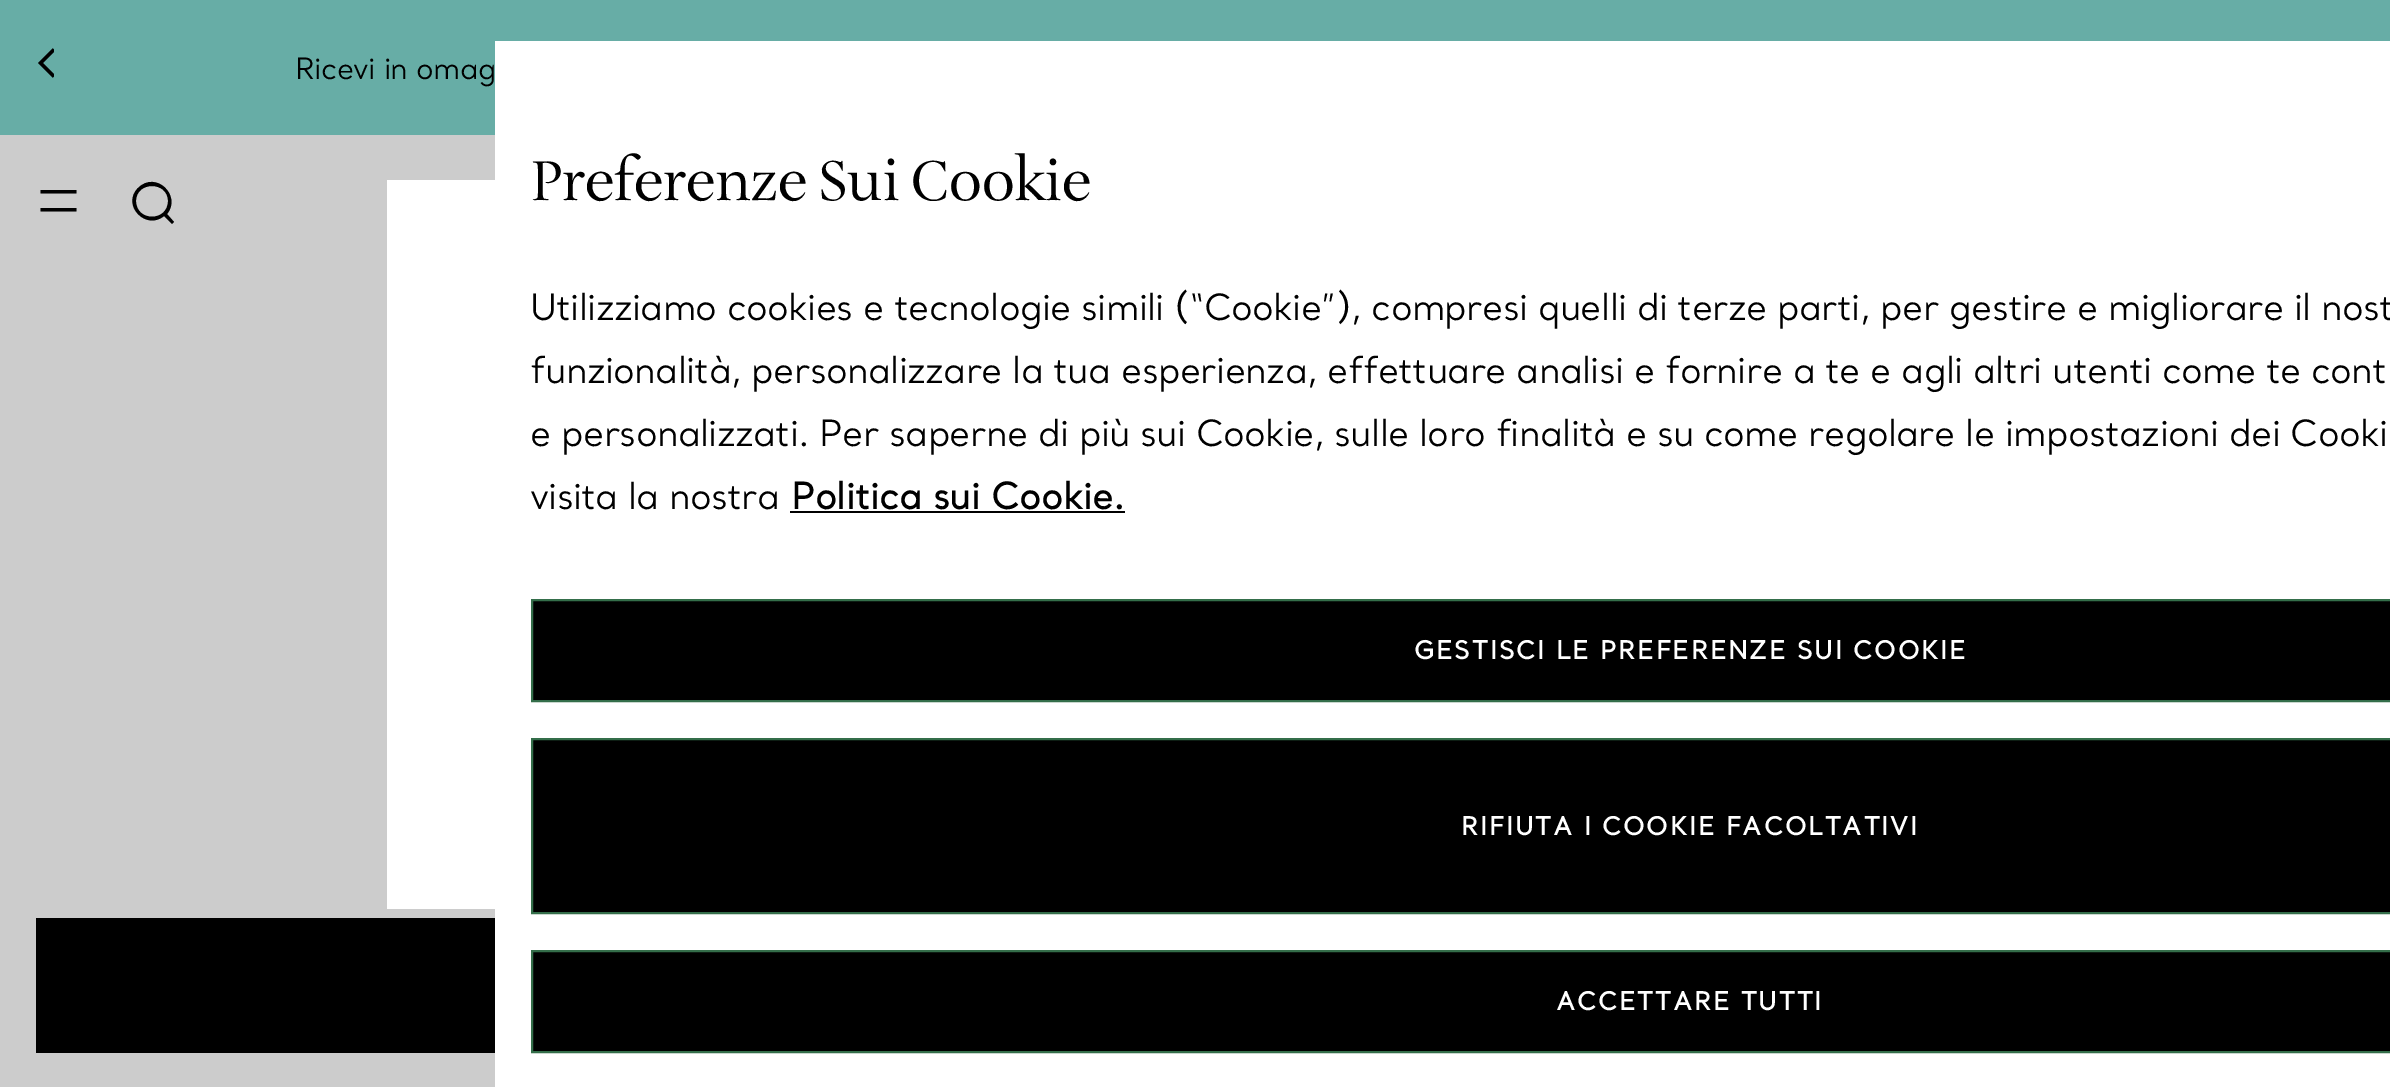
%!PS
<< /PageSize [2390 1087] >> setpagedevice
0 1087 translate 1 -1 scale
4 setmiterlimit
0.8 setgray
0 0 2390 1087 rectfill
0.404 0.678 0.651 setrgbcolor
0 0 2390 135 rectfill
gsave
36 47 18 32 rectclip
0 setgray
3.4 setlinewidth
newpath 54 76.5 moveto 40.5 63 lineto 54 49.5 lineto stroke
grestore
/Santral-Regular [29.25 0 0 -29.25 0 0] selectfont
0 setgray
295 79 moveto -0.6 0 (Ricevi in omag) ashow
newpath 40.5 193.5 moveto 76.5 193.5 lineto 76.5 190 lineto 40.5 190 lineto closepath 40.5 211.5 moveto 76.5 211.5 lineto 76.5 208 lineto 40.5 208 lineto closepath eofill
newpath 168 201 moveto 168 222 136 222 136 201 curveto 136 181 168 181 168 201 curveto closepath 164 216 moveto 146 231 121 205 138 188 curveto 156 170 182 196 167 214 curveto 174 222 lineto 172 224 lineto closepath eofill
1 setgray
387 180 108 729 rectfill
0 setgray
36 918 459 135 rectfill
1 setgray
495 41 1895 1046 rectfill
/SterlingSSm-Regular [54 0 0 -54 0 0] selectfont
0 setgray
530 200 moveto -1.6 0 (Preferenze Sui Cookie) ashow
/Santral-Regular [36 0 0 -36 0 0] selectfont
530 320 moveto -0.72 0 (Utilizziamo cookies e tecnologie simili \(“Cookie”\), compresi quelli di terze parti, per gestire e migliorare il nost) ashow
530 383 moveto -0.72 0 (funzionalità, personalizzare la tua esperienza, effettuare analisi e fornire a te e agli altri utenti come te cont) ashow
530 446 moveto -0.72 0 (e personalizzati. Per saperne di più sui Cookie, sulle loro finalità e su come regolare le impostazioni dei Cooki) ashow
530 509 moveto -0.72 0 (visita la nostra) ashow
/Santral-Bold [36 0 0 -36 0 0] selectfont
791 509 moveto (Politica sui Cookie.) show
790 511 335 2 rectfill
newpath 532 600 moveto 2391 600 lineto 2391 701 lineto 532 701 lineto closepath gsave fill grestore
0.204 0.431 0.29 setrgbcolor
2 setlinewidth
stroke
/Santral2-Bold [24.75 0 0 -24.75 0 0] selectfont
1 setgray
1414 659 moveto 2 0 (GESTISCI LE PREFERENZE SUI COOKIE) ashow
0 setgray
newpath 532 739 moveto 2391 739 lineto 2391 913 lineto 532 913 lineto closepath gsave fill grestore
0.204 0.431 0.29 setrgbcolor
stroke
1 setgray
1461 835 moveto 2 0 (RIFIUTA I COOKIE FACOLTATIVI) ashow
0 setgray
newpath 532 951 moveto 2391 951 lineto 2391 1052 lineto 532 1052 lineto closepath gsave fill grestore
0.204 0.431 0.29 setrgbcolor
stroke
1 setgray
1556 1010 moveto 2 0 (ACCETTARE TUTTI) ashow
showpage
